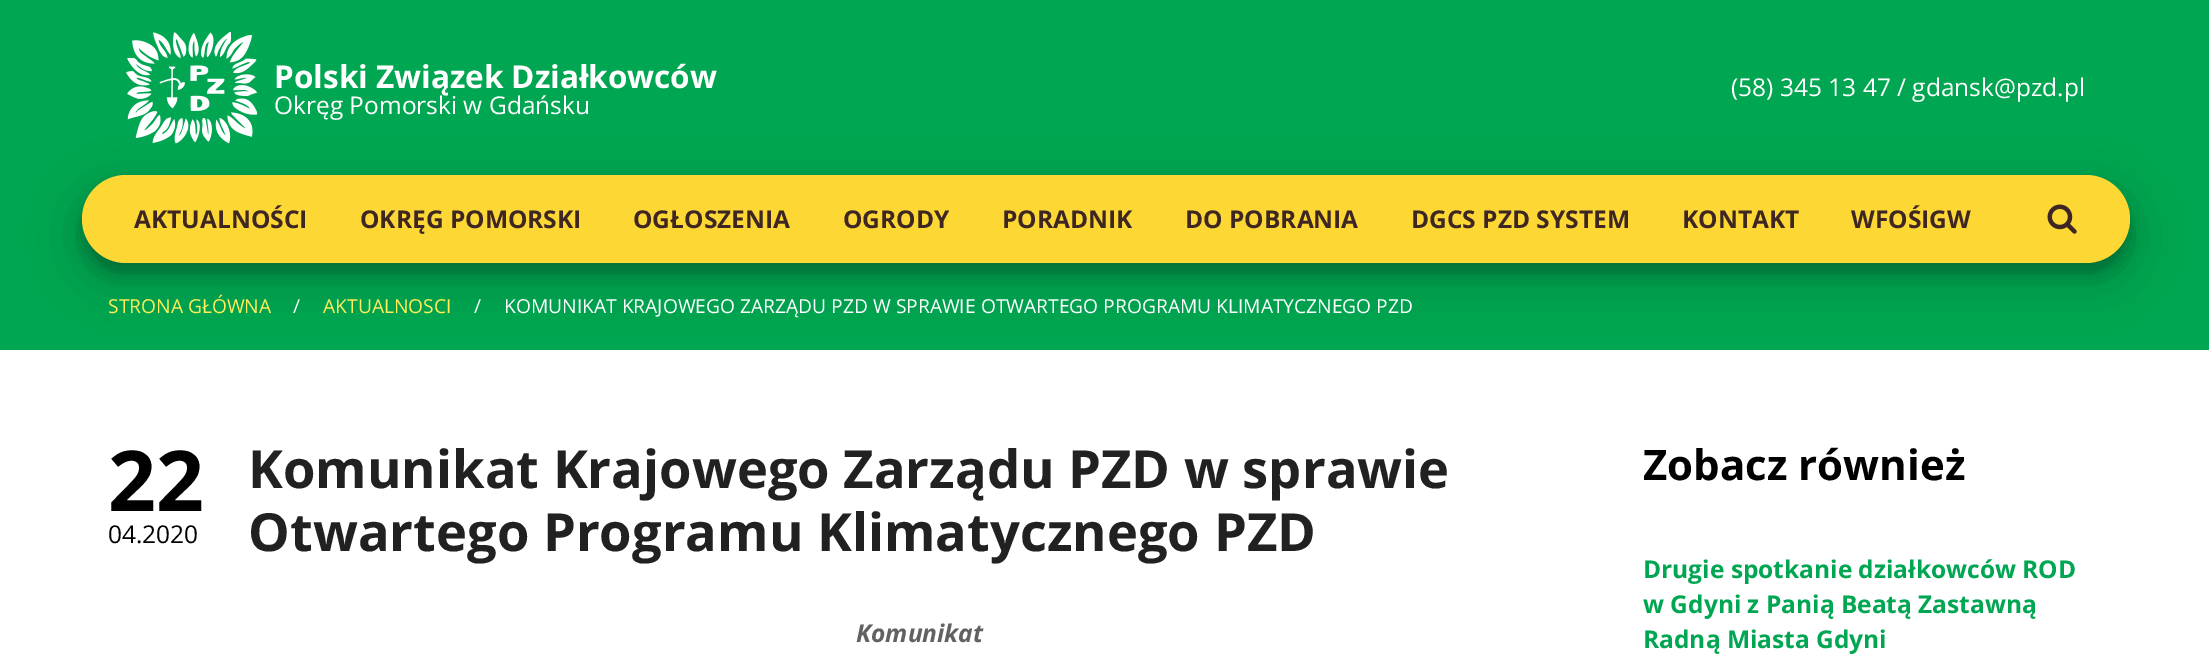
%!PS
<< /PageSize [2209 656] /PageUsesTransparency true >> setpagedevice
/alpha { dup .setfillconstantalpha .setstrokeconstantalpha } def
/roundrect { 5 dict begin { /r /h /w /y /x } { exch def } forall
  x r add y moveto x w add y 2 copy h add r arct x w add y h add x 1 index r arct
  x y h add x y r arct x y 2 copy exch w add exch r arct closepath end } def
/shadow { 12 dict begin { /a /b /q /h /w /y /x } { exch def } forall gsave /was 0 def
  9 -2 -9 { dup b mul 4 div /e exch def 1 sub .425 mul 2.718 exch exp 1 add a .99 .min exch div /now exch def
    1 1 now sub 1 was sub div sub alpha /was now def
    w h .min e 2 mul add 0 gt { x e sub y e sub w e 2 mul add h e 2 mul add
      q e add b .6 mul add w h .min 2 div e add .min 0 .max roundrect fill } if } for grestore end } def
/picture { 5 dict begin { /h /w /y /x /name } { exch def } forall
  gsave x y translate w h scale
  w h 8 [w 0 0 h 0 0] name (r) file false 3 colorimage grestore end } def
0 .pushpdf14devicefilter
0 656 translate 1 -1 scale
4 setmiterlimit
1 setgray
0 0 2209 656 rectfill
0 0.651 0.318 setrgbcolor
0 0 2209 350 rectfill
0 setgray
82 193 2048 87 43.5 26 0.19 shadow
(img1.rgb) 126 32 131 112 picture
/OpenSans-Bold [31.5 0 0 -31.5 0 0] selectfont
1 setgray
274 88 moveto (Polski Związek Działkowców) show
/OpenSans-Regular [24.5 0 0 -24.5 0 0] selectfont
274 114 moveto (Okręg Pomorski w Gdańsku) show
1731 96 moveto (\(58\) 345 13 47 / gdansk@pzd.pl) show
0 setgray
82 186 2048 87 43.5 9 0.23 shadow
0.992 0.847 0.208 setrgbcolor
82 175 2048 88 44 roundrect fill
/OpenSans-Bold [24.5 0 0 -24.5 0 0] selectfont
0.243 0.153 0.137 setrgbcolor
134 228 moveto (AKTUALNOŚCI) show
360 228 moveto (OKRĘG POMORSKI) show
633 228 moveto (OGŁOSZENIA) show
843 228 moveto (OGRODY) show
1002 228 moveto (PORADNIK) show
1185 228 moveto (DO POBRANIA) show
1411 228 moveto (DGCS PZD SYSTEM) show
1682 228 moveto (KONTAKT) show
1851 228 moveto (WFOŚIGW) show
(img2.rgb) 2047 204 30 30 picture
/OpenSans-Regular [19.25 0 0 -19.25 0 0] selectfont
1 0.933 0.345 setrgbcolor
108 313 moveto (STRONA GŁÓWNA) show
1 setgray
293 313 moveto (/) show
1 0.933 0.345 setrgbcolor
323 313 moveto (AKTUALNOSCI) show
1 setgray
474 313 moveto (/) show
504 313 moveto (KOMUNIKAT KRAJOWEGO ZARZĄDU PZD W SPRAWIE OTWARTEGO PROGRAMU KLIMATYCZNEGO PZD) show
/OpenSans-Bold [84 0 0 -84 0 0] selectfont
0 setgray
108 511 moveto (22) show
/OpenSans-Regular [24.5 0 0 -24.5 0 0] selectfont
108 543 moveto (04.2020) show
/OpenSans-Bold [52.5 0 0 -52.5 0 0] selectfont
0.129 setgray
248 488 moveto (Komunikat Krajowego Zarządu PZD w sprawie) show
248 551 moveto (Otwartego Programu Klimatycznego PZD) show
/OpenSans-BoldItalic [24.5 0 0 -24.5 0 0] selectfont
0.38 setgray
856 642 moveto (Komunikat) show
/OpenSans-Bold [42 0 0 -42 0 0] selectfont
0 setgray
1643 480 moveto (Zobacz również) show
/OpenSans-Bold [24.5 0 0 -24.5 0 0] selectfont
0 0.651 0.318 setrgbcolor
1643 578 moveto (Drugie spotkanie działkowców ROD) show
1643 613 moveto (w Gdyni z Panią Beatą Zastawną) show
1643 648 moveto (Radną Miasta Gdyni) show
.poppdf14devicefilter showpage
